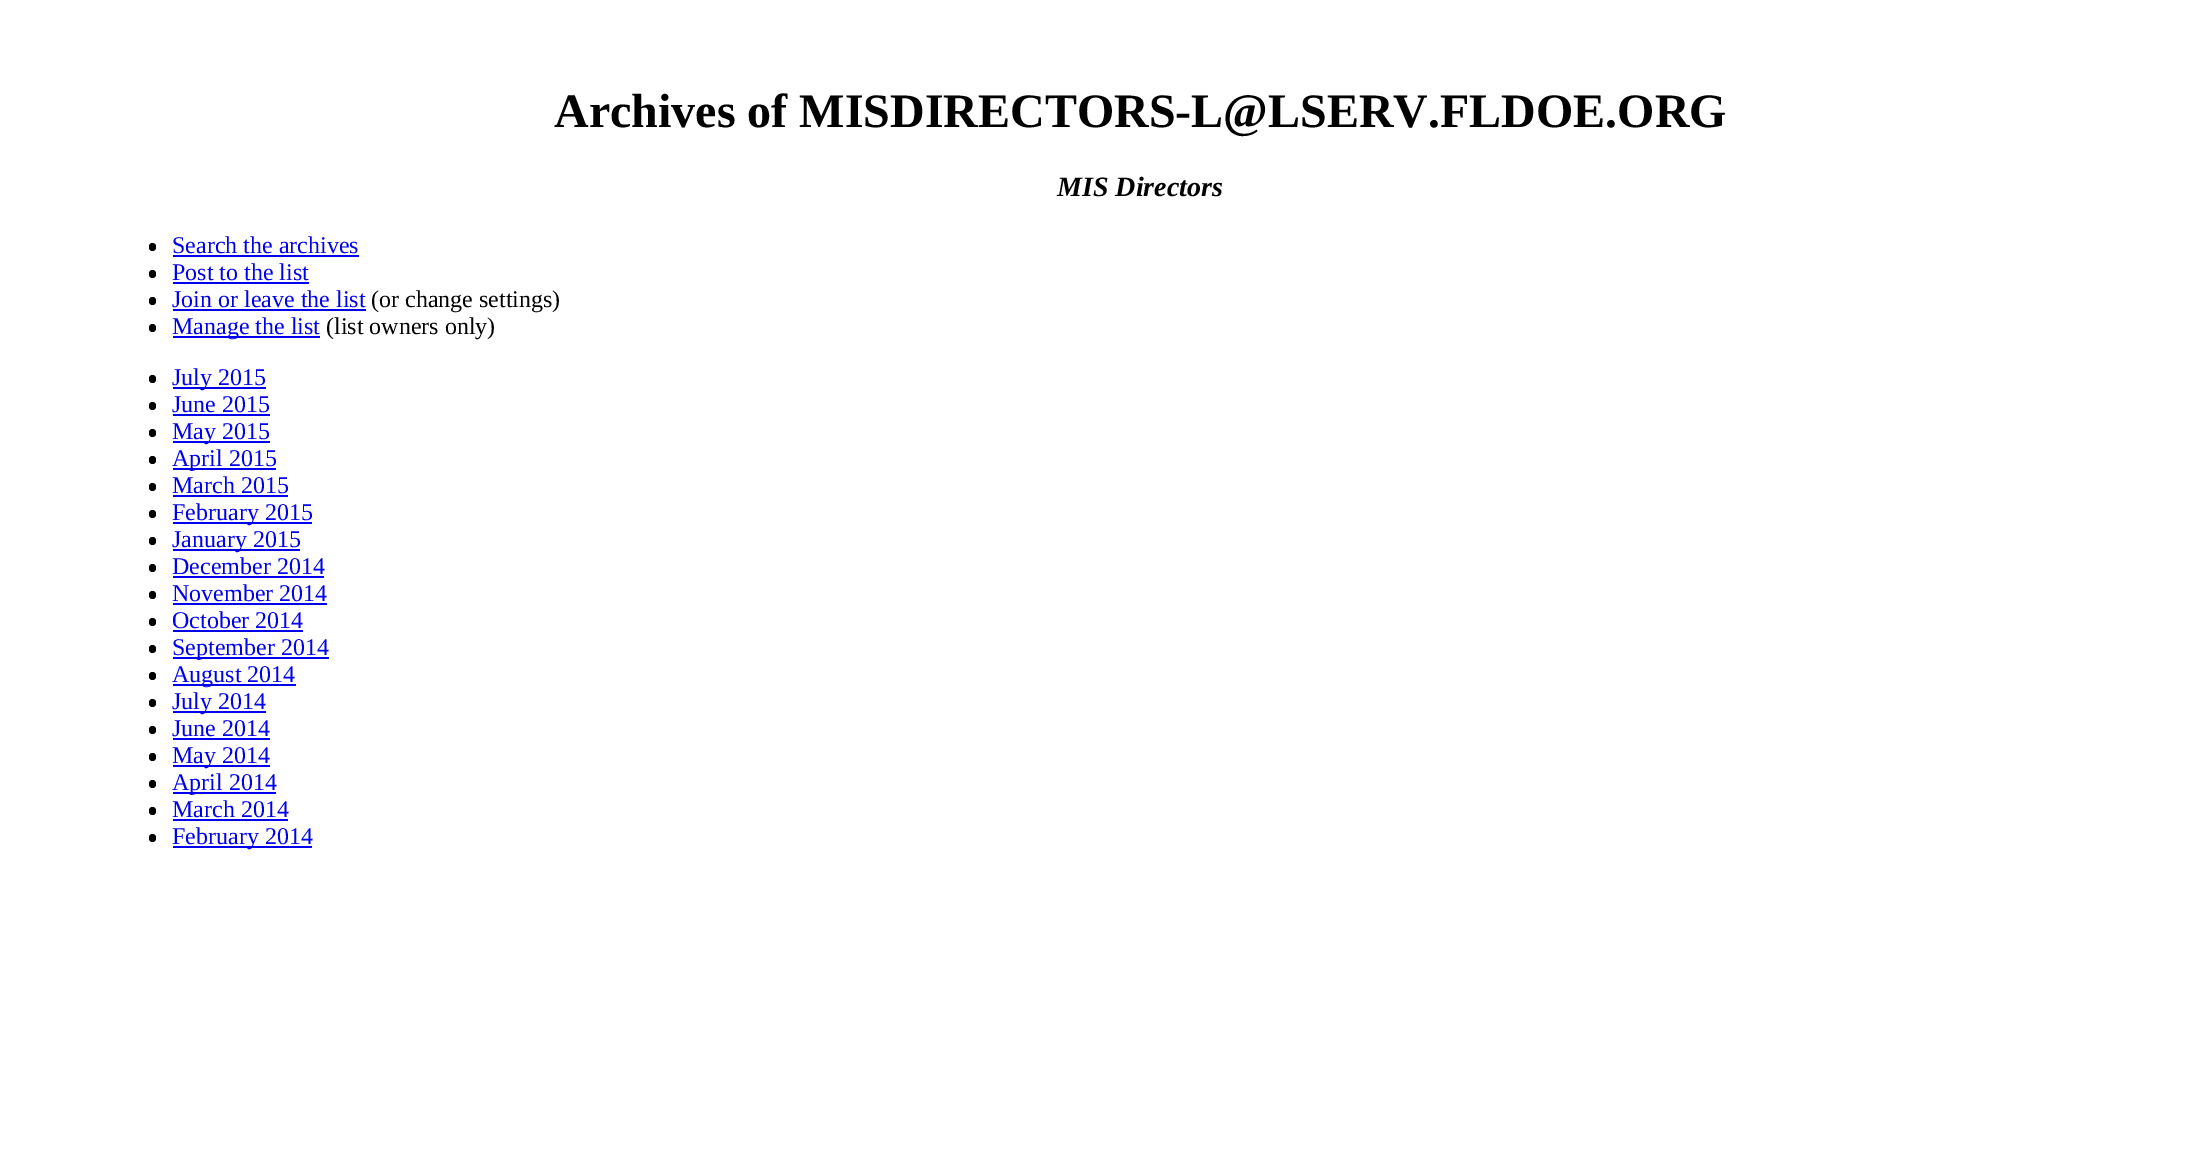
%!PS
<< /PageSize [2186 1156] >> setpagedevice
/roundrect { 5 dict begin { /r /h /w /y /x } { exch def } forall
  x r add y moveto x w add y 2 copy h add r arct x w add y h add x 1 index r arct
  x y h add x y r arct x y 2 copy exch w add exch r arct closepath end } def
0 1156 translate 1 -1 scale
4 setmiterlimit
1 setgray
0 0 2186 1156 rectfill
/LiberationSerif-Bold [48 0 0 -48 0 0] selectfont
0 setgray
554 127 moveto (Archives of MISDIRECTORS-L@LSERV.FLDOE.ORG) show
/LiberationSerif-BoldItalic [28 0 0 -28 0 0] selectfont
1057 196 moveto (MIS Directors) show
149 243 7 8 3.5 roundrect fill
/LiberationSerif-Regular [24 0 0 -24 0 0] selectfont
0 0 0.933 setrgbcolor
172 253 moveto (Search the archives) show
173 255 186 2 rectfill
0 setgray
149 270 7 8 3.5 roundrect fill
0 0 0.933 setrgbcolor
172 280 moveto (Post to the list) show
173 282 136 2 rectfill
0 setgray
149 297 7 8 3.5 roundrect fill
0 0 0.933 setrgbcolor
172 307 moveto (Join or leave the list) show
173 309 193 2 rectfill
0 setgray
371 307 moveto (\(or change settings\)) show
149 324 7 8 3.5 roundrect fill
0 0 0.933 setrgbcolor
173 336 147 2 rectfill
172 334 moveto (Manage the list) show
0 setgray
326 334 moveto (\(list owners only\)) show
149 375 7 8 3.5 roundrect fill
0 0 0.933 setrgbcolor
173 387 93 2 rectfill
172 385 moveto (July 2015) show
0 setgray
149 402 7 8 3.5 roundrect fill
0 0 0.933 setrgbcolor
172 412 moveto (June 2015) show
173 414 97 2 rectfill
0 setgray
149 429 7 8 3.5 roundrect fill
0 0 0.933 setrgbcolor
173 441 97 2 rectfill
172 439 moveto (May 2015) show
0 setgray
149 456 7 8 3.5 roundrect fill
0 0 0.933 setrgbcolor
173 468 103 2 rectfill
172 466 moveto (April 2015) show
0 setgray
149 483 7 8 3.5 roundrect fill
0 0 0.933 setrgbcolor
172 493 moveto (March 2015) show
173 495 115 2 rectfill
0 setgray
149 510 7 8 3.5 roundrect fill
0 0 0.933 setrgbcolor
173 522 139 2 rectfill
172 520 moveto (February 2015) show
0 setgray
149 537 7 8 3.5 roundrect fill
0 0 0.933 setrgbcolor
173 549 127 2 rectfill
172 547 moveto (January 2015) show
0 setgray
149 564 7 8 3.5 roundrect fill
0 0 0.933 setrgbcolor
172 574 moveto (December 2014) show
173 576 151 2 rectfill
0 setgray
149 591 7 8 3.5 roundrect fill
0 0 0.933 setrgbcolor
172 601 moveto (November 2014) show
173 603 154 2 rectfill
0 setgray
149 618 7 8 3.5 roundrect fill
0 0 0.933 setrgbcolor
172 628 moveto (October 2014) show
173 630 130 2 rectfill
0 setgray
149 645 7 8 3.5 roundrect fill
0 0 0.933 setrgbcolor
173 657 156 2 rectfill
172 655 moveto (September 2014) show
0 setgray
149 672 7 8 3.5 roundrect fill
0 0 0.933 setrgbcolor
173 684 123 2 rectfill
172 682 moveto (August 2014) show
0 setgray
149 699 7 8 3.5 roundrect fill
0 0 0.933 setrgbcolor
173 711 93 2 rectfill
172 709 moveto (July 2014) show
0 setgray
149 726 7 8 3.5 roundrect fill
0 0 0.933 setrgbcolor
172 736 moveto (June 2014) show
173 738 97 2 rectfill
0 setgray
149 753 7 8 3.5 roundrect fill
0 0 0.933 setrgbcolor
173 765 97 2 rectfill
172 763 moveto (May 2014) show
0 setgray
149 780 7 8 3.5 roundrect fill
0 0 0.933 setrgbcolor
173 792 103 2 rectfill
172 790 moveto (April 2014) show
0 setgray
149 807 7 8 3.5 roundrect fill
0 0 0.933 setrgbcolor
172 817 moveto (March 2014) show
173 819 115 2 rectfill
0 setgray
149 834 7 8 3.5 roundrect fill
0 0 0.933 setrgbcolor
173 846 139 2 rectfill
172 844 moveto (February 2014) show
showpage
